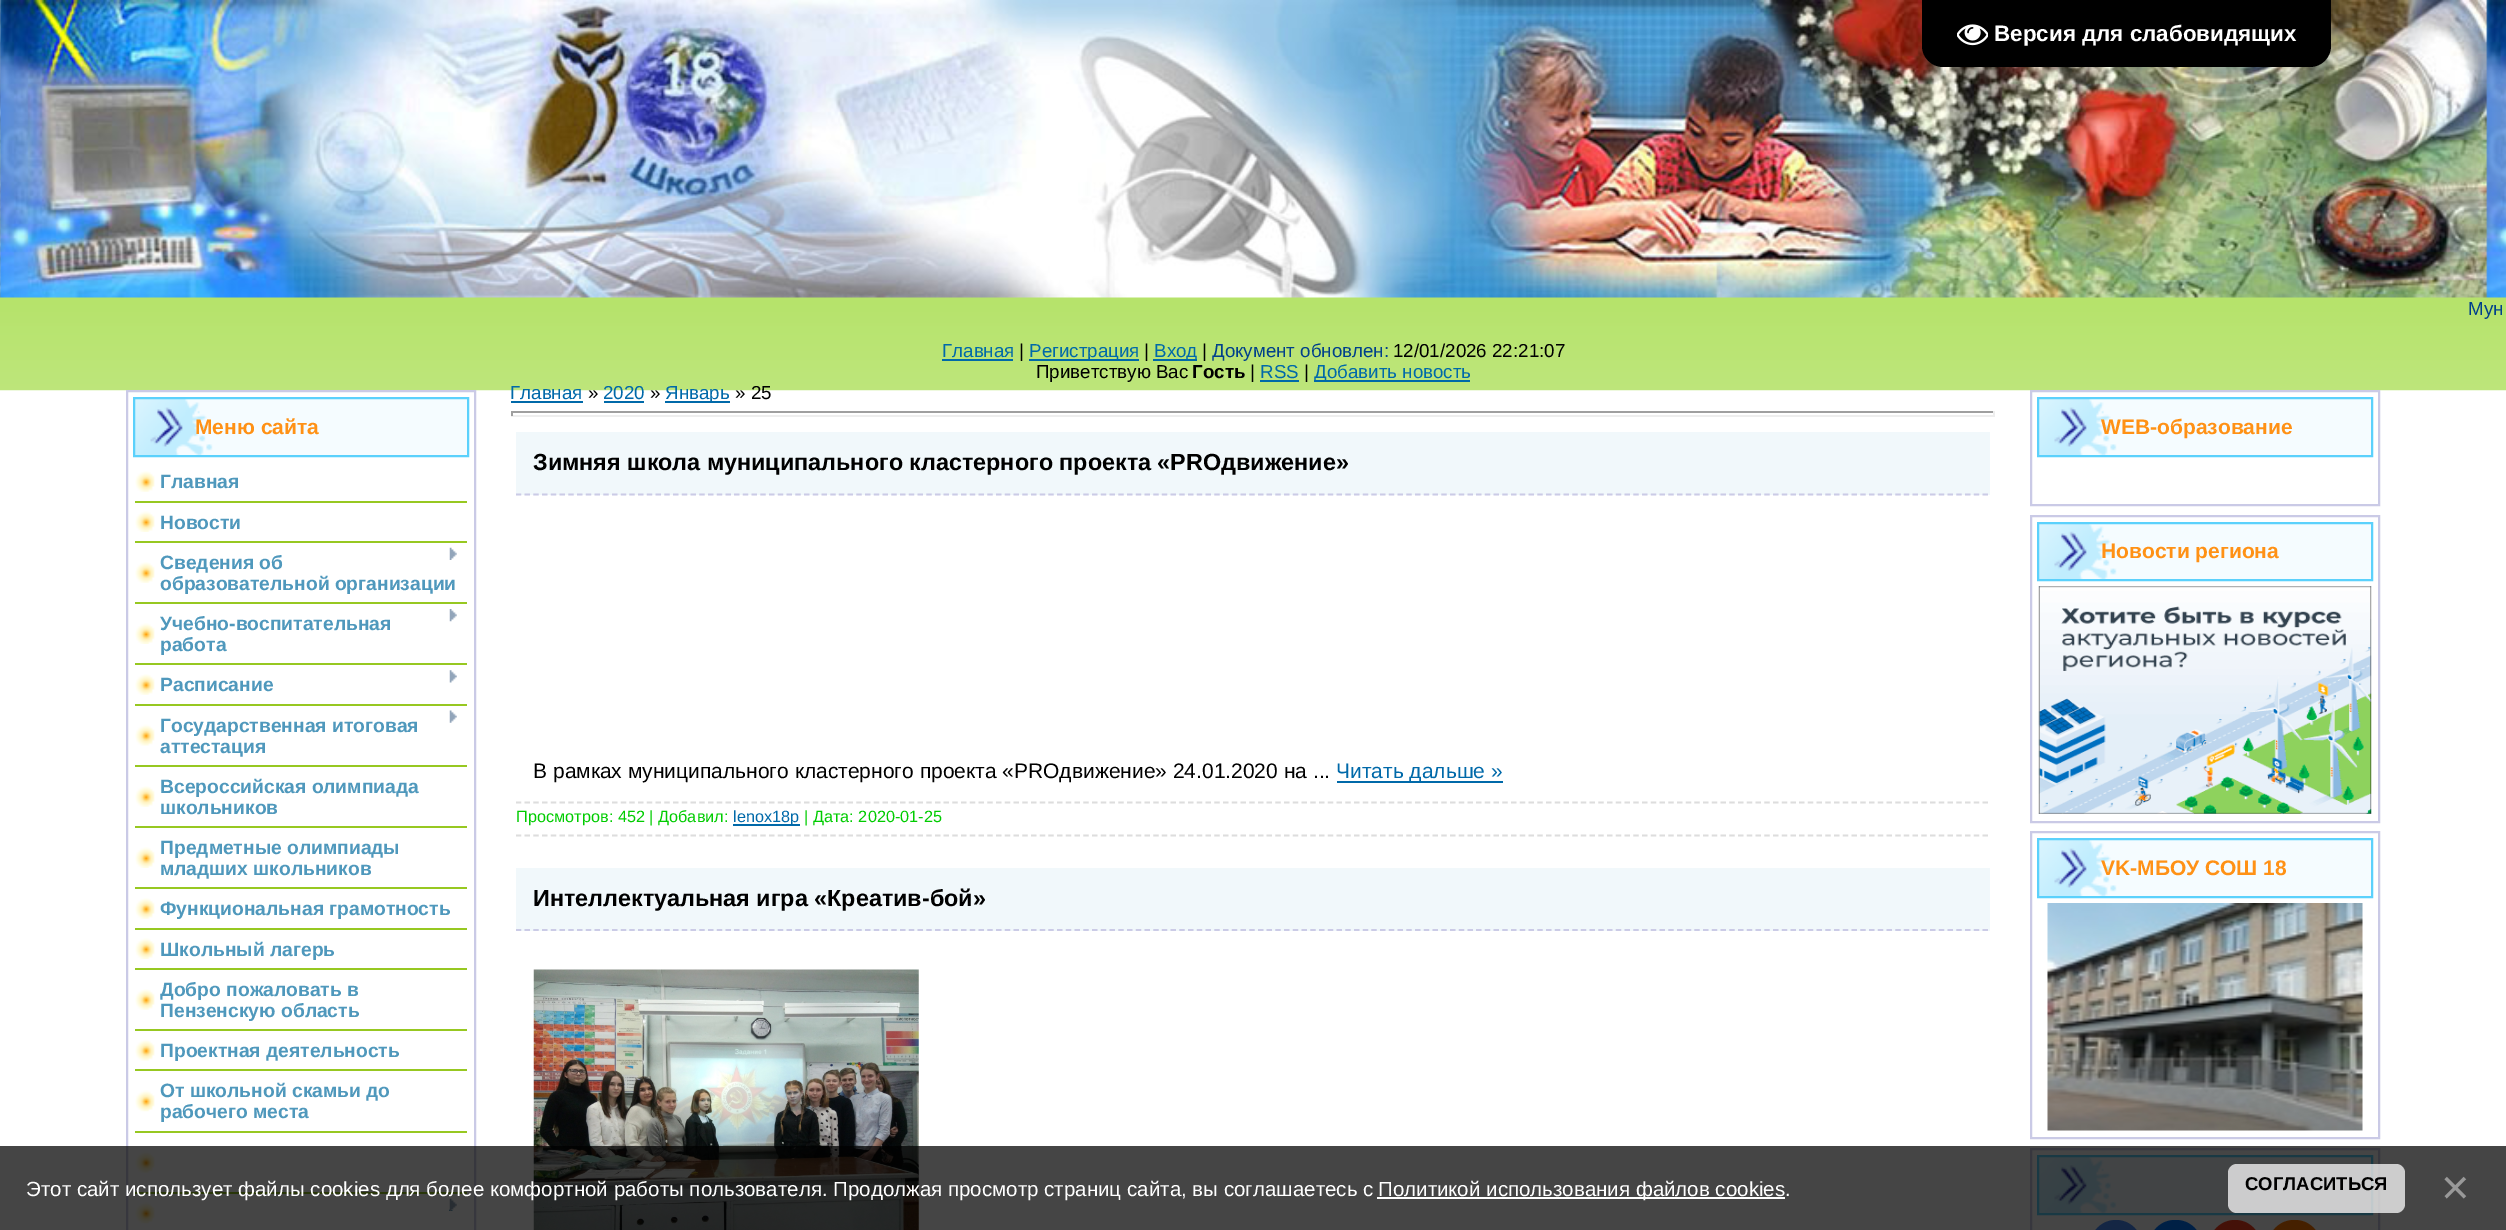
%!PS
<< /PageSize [2506 1230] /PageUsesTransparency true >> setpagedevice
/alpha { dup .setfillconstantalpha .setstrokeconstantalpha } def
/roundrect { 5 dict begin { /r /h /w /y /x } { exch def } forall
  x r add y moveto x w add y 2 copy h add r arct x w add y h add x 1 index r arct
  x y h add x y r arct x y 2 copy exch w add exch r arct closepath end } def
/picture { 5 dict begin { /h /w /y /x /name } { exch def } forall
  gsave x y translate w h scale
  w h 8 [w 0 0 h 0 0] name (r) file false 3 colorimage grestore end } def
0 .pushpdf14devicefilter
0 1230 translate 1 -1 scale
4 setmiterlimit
1 setgray
0 0 2506 1230 rectfill
(img2.rgb) 0 297 2506 94 picture
(img3.rgb) 0 0 2506 298 picture
0 setgray
newpath 1922 0 moveto 2331 0 lineto 2331 46 lineto 2331 57.5 2321.5 67 2310 67 curveto 1943 67 lineto 1931.5 67 1922 57.5 1922 46 curveto closepath fill
(img1.rgb) 1957 24 31 22 picture
/LiberationSans-Bold [22.4 0 0 -22.4 0 0] selectfont
1 setgray
1994 41 moveto (Версия для слабовидящих) show
/LiberationSans-Regular [18.75 0 0 -18.75 0 0] selectfont
0 0.251 0.545 setrgbcolor
2468 315 moveto (Мун) show
0 0.412 0.663 setrgbcolor
942 357 moveto (Главная) show
942 359 71 2 rectfill
0 setgray
1019 357 moveto (|) show
0 0.412 0.663 setrgbcolor
1029 359 110 2 rectfill
1029 357 moveto (Регистрация) show
0 setgray
1144 357 moveto (|) show
0 0.412 0.663 setrgbcolor
1153 359 44 2 rectfill
1154 357 moveto (Вход) show
0 setgray
1202 357 moveto (|) show
0 0.251 0.545 setrgbcolor
1212 357 moveto (Документ обновлен:) show
0 setgray
1393 357 moveto (12/01/2026 22:21:07) show
1036 378 moveto (Приветствую Вас) show
/LiberationSans-Bold [18.75 0 0 -18.75 0 0] selectfont
1192 378 moveto (Гость) show
/LiberationSans-Regular [18.75 0 0 -18.75 0 0] selectfont
1250 378 moveto (|) show
0 0.412 0.663 setrgbcolor
1260 378 moveto (RSS) show
1260 380 39 2 rectfill
0 setgray
1304 378 moveto (|) show
0 0.412 0.663 setrgbcolor
1314 380 156 2 rectfill
1314 378 moveto (Добавить новость) show
0.792 0.792 0.902 setrgbcolor
2 setlinewidth
127 391 348 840 rectstroke
0.961 0.988 1 setrgbcolor
213 399 254 56 rectfill
(img4.rgb) 135 399 78 56 picture
0.357 0.82 0.988 setrgbcolor
134 398 334 58 rectstroke
/LiberationSans-Bold [21 0 0 -21 0 0] selectfont
1 0.569 0.082 setrgbcolor
195 434 moveto (Меню сайта) show
(img5.rgb) 135 471 20 21 picture
0.592 0.784 0.129 setrgbcolor
135 501 332 2 rectfill
/LiberationSans-Bold [19.25 0 0 -19.25 0 0] selectfont
0.31 0.596 0.737 setrgbcolor
160 488 moveto (Главная) show
(img6.rgb) 135 511 20 21 picture
0.592 0.784 0.129 setrgbcolor
135 541 332 2 rectfill
0.31 0.596 0.737 setrgbcolor
160 529 moveto (Новости) show
(img5.rgb) 135 562 20 21 picture
0.592 0.784 0.129 setrgbcolor
135 602 332 2 rectfill
0.31 0.596 0.737 setrgbcolor
160 569 moveto (Сведения об) show
(img7.rgb) 449 547 8 13 picture
160 590 moveto (образовательной организации) show
(img6.rgb) 135 623 20 21 picture
0.592 0.784 0.129 setrgbcolor
135 663 332 2 rectfill
0.31 0.596 0.737 setrgbcolor
160 630 moveto (Учебно-воспитательная) show
(img8.rgb) 449 609 8 13 picture
160 651 moveto (работа) show
(img5.rgb) 135 674 20 21 picture
0.592 0.784 0.129 setrgbcolor
135 704 332 2 rectfill
0.31 0.596 0.737 setrgbcolor
160 691 moveto (Расписание) show
(img9.rgb) 449 670 8 13 picture
(img10.rgb) 135 724 20 22 picture
0.592 0.784 0.129 setrgbcolor
135 765 332 2 rectfill
(img11.rgb) 449 710 8 13 picture
0.31 0.596 0.737 setrgbcolor
160 732 moveto (Государственная итоговая) show
160 753 moveto (аттестация) show
(img5.rgb) 135 786 20 21 picture
0.592 0.784 0.129 setrgbcolor
135 826 332 2 rectfill
0.31 0.596 0.737 setrgbcolor
160 793 moveto (Всероссийская олимпиада) show
160 814 moveto (школьников) show
(img6.rgb) 135 847 20 21 picture
0.592 0.784 0.129 setrgbcolor
135 887 332 2 rectfill
0.31 0.596 0.737 setrgbcolor
160 854 moveto (Предметные олимпиады) show
160 875 moveto (младших школьников) show
(img5.rgb) 135 898 20 21 picture
0.592 0.784 0.129 setrgbcolor
135 928 332 2 rectfill
0.31 0.596 0.737 setrgbcolor
160 915 moveto (Функциональная грамотность) show
(img6.rgb) 135 938 20 21 picture
0.592 0.784 0.129 setrgbcolor
135 968 332 2 rectfill
0.31 0.596 0.737 setrgbcolor
160 956 moveto (Школьный лагерь) show
(img5.rgb) 135 989 20 21 picture
0.592 0.784 0.129 setrgbcolor
135 1029 332 2 rectfill
0.31 0.596 0.737 setrgbcolor
160 996 moveto (Добро пожаловать в) show
160 1017 moveto (Пензенскую область) show
(img10.rgb) 135 1039 20 22 picture
0.592 0.784 0.129 setrgbcolor
135 1069 332 2 rectfill
0.31 0.596 0.737 setrgbcolor
160 1057 moveto (Проектная деятельность) show
(img12.rgb) 135 1090 20 22 picture
0.592 0.784 0.129 setrgbcolor
135 1131 332 2 rectfill
0.31 0.596 0.737 setrgbcolor
160 1097 moveto (От школьной скамьи до) show
160 1118 moveto (рабочего места) show
(img10.rgb) 135 1151 20 22 picture
0.592 0.784 0.129 setrgbcolor
135 1192 332 2 rectfill
(img12.rgb) 135 1202 20 22 picture
(img13.rgb) 449 1198 8 13 picture
/LiberationSans-Regular [18.75 0 0 -18.75 0 0] selectfont
0 0.412 0.663 setrgbcolor
510 399 moveto (Главная) show
511 401 72 2 rectfill
0 setgray
588 399 moveto (») show
0 0.412 0.663 setrgbcolor
603 399 moveto (2020) show
604 401 40 2 rectfill
0 setgray
650 399 moveto (») show
0 0.412 0.663 setrgbcolor
665 401 65 2 rectfill
665 399 moveto (Январь) show
0 setgray
735 399 moveto (» 25) show
0.624 setgray
511 411 1484 2 rectfill
0.933 setgray
1993 411 2 5 rectfill
511 415 1484 2 rectfill
0.624 setgray
511 411 2 5 rectfill
0.945 0.973 0.984 setrgbcolor
516 432 1474 63 rectfill
0.796 0.796 0.902 setrgbcolor
1.8 setlinewidth
[5.25 3.48] 0 setdash
newpath 516 494.5 moveto 1990 494.5 lineto stroke
/LiberationSans-Bold [23.35 0 0 -23.35 0 0] selectfont
0 setgray
533 470 moveto (Зимняя школа муниципального кластерного проекта «PROдвижение») show
/LiberationSans-Regular [21 0 0 -21 0 0] selectfont
533 778 moveto (В рамках муниципального кластерного проекта «PROдвижение» 24.01.2020 на ...) show
0 0.412 0.663 setrgbcolor
1337 781 166 2 rectfill
1336 778 moveto (Читать дальше ») show
0.867 setgray
newpath 516 802.5 moveto 1990 802.5 lineto stroke
newpath 516 835.5 moveto 1990 835.5 lineto stroke
/LiberationSans-Regular [16.3 0 0 -16.3 0 0] selectfont
0 0.8 0 setrgbcolor
516 822 moveto (Просмотров: 452 | Добавил:) show
0 0.412 0.663 setrgbcolor
733 824 67 2 rectfill
733 822 moveto (lenox18p) show
0 0.8 0 setrgbcolor
804 822 moveto (| Дата: 2020-01-25) show
0.945 0.973 0.984 setrgbcolor
516 868 1474 63 rectfill
0.796 0.796 0.902 setrgbcolor
newpath 516 930 moveto 1990 930 lineto stroke
/LiberationSans-Bold [23.35 0 0 -23.35 0 0] selectfont
0 setgray
533 906 moveto (Интеллектуальная игра «Креатив-бой») show
(img14.rgb) 533 969 386 261 picture
0.792 0.792 0.902 setrgbcolor
2 setlinewidth
[] 0 setdash
2031 391 348 114 rectstroke
0.961 0.988 1 setrgbcolor
2117 399 254 56 rectfill
(img4.rgb) 2039 399 78 56 picture
0.357 0.82 0.988 setrgbcolor
2038 398 334 58 rectstroke
/LiberationSans-Bold [21 0 0 -21 0 0] selectfont
1 0.569 0.082 setrgbcolor
2101 434 moveto (WEB-образование) show
0.792 0.792 0.902 setrgbcolor
2031 516 348 306 rectstroke
0.961 0.988 1 setrgbcolor
2117 524 254 55 rectfill
(img15.rgb) 2039 524 78 55 picture
0.357 0.82 0.988 setrgbcolor
2038 523 334 57 rectstroke
1 0.569 0.082 setrgbcolor
2101 558 moveto (Новости региона) show
(img16.rgb) 2038 586 334 228 picture
0.792 0.792 0.902 setrgbcolor
2031 832 348 306 rectstroke
0.961 0.988 1 setrgbcolor
2117 840 254 56 rectfill
(img4.rgb) 2039 840 78 56 picture
0.357 0.82 0.988 setrgbcolor
2038 839 334 58 rectstroke
1 0.569 0.082 setrgbcolor
2101 875 moveto (VK-МБОУ СОШ 18) show
(img17.rgb) 2047 903 316 228 picture
0.792 0.792 0.902 setrgbcolor
2031 1149 348 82 rectstroke
0.961 0.988 1 setrgbcolor
2117 1157 254 56 rectfill
(img18.rgb) 2039 1157 78 56 picture
0.357 0.82 0.988 setrgbcolor
2038 1156 334 58 rectstroke
0.286 0.545 0.98 setrgbcolor
2090 1220 52 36 26 roundrect fill
0 0.467 1 setrgbcolor
2149 1220 53 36 26 roundrect fill
0.988 0.247 0.114 setrgbcolor
2209 1220 52 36 26 roundrect fill
1 0.467 0 setrgbcolor
2268 1220 53 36 26 roundrect fill
0.73 alpha
0 setgray
0 1146 2506 84 rectfill
/LiberationSans-Regular [20.53 0 0 -20.53 0 0] selectfont
1 alpha
1 setgray
26 1196 moveto (Этот сайт использует файлы cookies для более комфортной работы пользователя. Продолжая просмотр страниц сайта, вы соглашаетесь с) show
1377 1197 408 2 rectfill
1378 1196 moveto (Политикой использования файлов cookies) show
1785 1196 moveto (.) show
0.73 alpha
2228 1164 177 49 9 roundrect fill
/LiberationSans-Bold [18.5 0 0 -18.5 0 0] selectfont
1 alpha
0 setgray
2245 1190 moveto (СОГЛАСИТЬСЯ) show
/LiberationSans-Regular [49 0 0 -49 0 0] selectfont
0.6 setgray
2441 1204 moveto (×) show
.poppdf14devicefilter showpage
